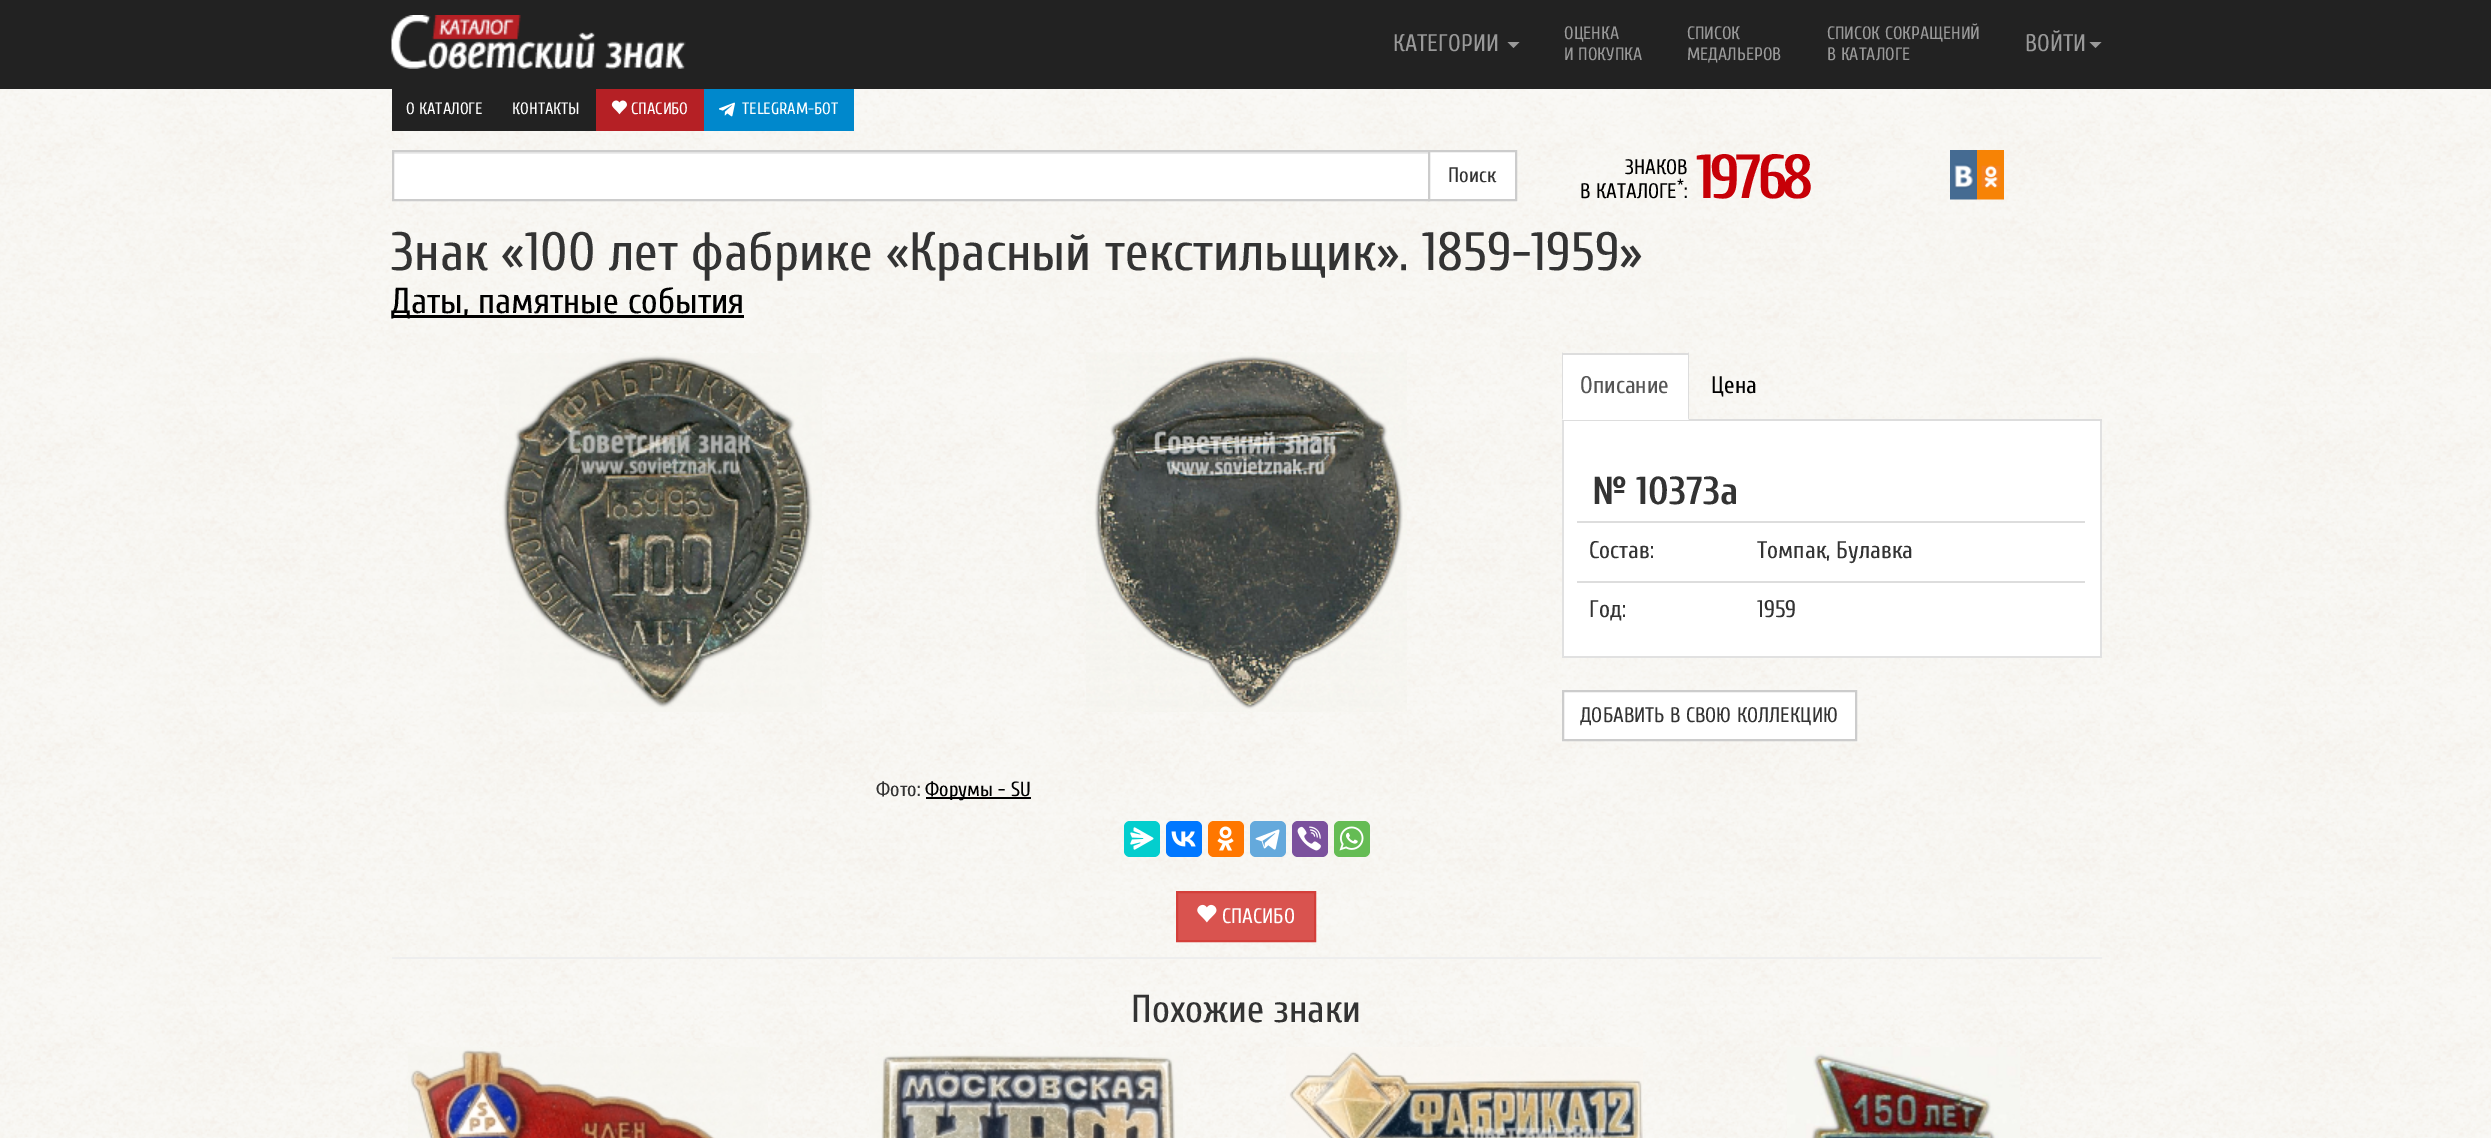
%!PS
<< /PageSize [2491 1138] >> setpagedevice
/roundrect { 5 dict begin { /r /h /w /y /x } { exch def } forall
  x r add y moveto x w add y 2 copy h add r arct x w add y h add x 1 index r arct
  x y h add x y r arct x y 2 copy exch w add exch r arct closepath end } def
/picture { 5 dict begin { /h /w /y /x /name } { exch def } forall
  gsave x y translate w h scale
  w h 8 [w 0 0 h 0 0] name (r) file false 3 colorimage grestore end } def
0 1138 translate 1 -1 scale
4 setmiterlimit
1 setgray
0 0 2491 1138 rectfill
(img1.rgb) 0 89 2491 1049 picture
0.133 setgray
0 0 2491 89 rectfill
(img2.rgb) 391 15 295 54 picture
/Cuprum-Regular [24 0 0 -24 0 0] selectfont
0.6 setgray
1393 51 moveto (КАТЕГОРИИ) show
newpath 1507.5 42 moveto 1519.5 42 lineto 1513.5 48 lineto closepath fill
/Cuprum-Regular [18 0 0 -18 0 0] selectfont
1564 39 moveto (ОЦЕНКА) show
1564 60 moveto (И ПОКУПКА) show
1687 39 moveto (СПИСОК) show
1687 60 moveto (МЕДАЛЬЕРОВ) show
1827 39 moveto (СПИСОК СОКРАЩЕНИЙ) show
1827 60 moveto (В КАТАЛОГЕ) show
/Cuprum-Regular [24 0 0 -24 0 0] selectfont
2025 51 moveto (ВОЙТИ) show
newpath 2089.5 42 moveto 2101.5 42 lineto 2095.5 48 lineto closepath fill
0.133 setgray
392 89 204 42 rectfill
/Cuprum-Regular [16.5 0 0 -16.5 0 0] selectfont
1 setgray
406 114 moveto (О КАТАЛОГЕ) show
512 114 moveto (КОНТАКТЫ) show
0.71 0.125 0.145 setrgbcolor
596 89 108 42 rectfill
(img3.rgb) 611 100 16 15 picture
1 setgray
631 114 moveto (СПАСИБО) show
0 0.533 0.8 setrgbcolor
704 89 150 42 rectfill
(img4.rgb) 719 102 16 15 picture
1 setgray
742 114 moveto (TELEGRAM-БОТ) show
394 154 1034 45 rectfill
0.925 setgray
393 152 1035 2 rectfill
0.8 setgray
2 setlinewidth
393 151 1036 49 rectstroke
1 setgray
newpath 1429 151 moveto 1516 151 lineto 1516 200 lineto 1429 200 lineto closepath gsave fill grestore
0.8 setgray
stroke
/Cuprum-Regular [21 0 0 -21 0 0] selectfont
0.2 setgray
1448 182 moveto (Поиск) show
0 setgray
1625 174 moveto (ЗНАКОВ) show
/Cuprum-Regular [16 0 0 -16 0 0] selectfont
1677 190 moveto (*) show
/Cuprum-Regular [21 0 0 -21 0 0] selectfont
1580 198 moveto (В КАТАЛОГЕ) show
1684 198 moveto (:) show
/Cuprum-Bold [62 0 0 -62 0 0] selectfont
0.78 0 0.027 setrgbcolor
1696 198 moveto -4.5 0 (19768) ashow
(img5.rgb) 1950 150 27 50 picture
(img6.rgb) 1977 150 27 50 picture
/Cuprum-Regular [54 0 0 -54 0 0] selectfont
0.2 setgray
391 270 moveto (Знак «100 лет фабрике «Красный текстильщик». 1859-1959») show
0 setgray
392 315 352 3 rectfill
/Cuprum-Regular [36 0 0 -36 0 0] selectfont
391 313 moveto (Даты, памятные события) show
(img7.rgb) 499 353 323 359 picture
(img8.rgb) 1086 352 321 360 picture
0.882 setgray
2100 420 2 237 rectfill
1562 656 540 2 rectfill
1562 420 2 237 rectfill
0.867 setgray
1562 419 540 2 rectfill
1 setgray
1562 355 127 65 rectfill
0.867 setgray
1562 353 127 2 rectfill
newpath 1689 352 moveto 1689 420 lineto 1688 418 lineto 1688 354 lineto closepath fill
newpath 1562 420 moveto 1562 352 lineto 1563 354 lineto 1563 418 lineto closepath fill
/Cuprum-Regular [24 0 0 -24 0 0] selectfont
0.333 setgray
1580 393 moveto (Описание) show
0 setgray
1711 393 moveto (Цена) show
1 setgray
1564 421 536 235 rectfill
/Cuprum-Bold [39 0 0 -39 0 0] selectfont
0.2 setgray
1592 504 moveto (№ 10373а) show
/Cuprum-Regular [24 0 0 -24 0 0] selectfont
1589 558 moveto (Состав:) show
0.867 setgray
1577 521 508 2 rectfill
0.2 setgray
1757 558 moveto (Томпак, Булавка) show
1589 617 moveto (Год:) show
0.867 setgray
1577 581 508 2 rectfill
0.2 setgray
1757 617 moveto (1959) show
1 setgray
newpath 1563 691 moveto 1856 691 lineto 1856 740 lineto 1563 740 lineto closepath gsave fill grestore
0.8 setgray
stroke
/Cuprum-Regular [21 0 0 -21 0 0] selectfont
0.2 setgray
1580 722 moveto (ДОБАВИТЬ В СВОЮ КОЛЛЕКЦИЮ) show
/Cuprum-Regular [20.5 0 0 -20.5 0 0] selectfont
876 796 moveto (Фото:) show
0 setgray
926 797 105 2 rectfill
925 796 moveto (Форумы - SU) show
0.012 0.808 0.808 setrgbcolor
1124 821 36 36 6 roundrect fill
(img9.rgb) 1130 827 24 23 picture
0 0.467 1 setrgbcolor
1166 821 36 36 6 roundrect fill
(img10.rgb) 1171 831 25 16 picture
1 0.467 0 setrgbcolor
1208 821 36 36 6 roundrect fill
(img11.rgb) 1217 826 17 25 picture
0.392 0.663 0.863 setrgbcolor
1250 821 36 36 6 roundrect fill
(img12.rgb) 1255 829 25 21 picture
0.482 0.318 0.616 setrgbcolor
1292 821 36 36 6 roundrect fill
(img13.rgb) 1297 826 24 25 picture
0.396 0.737 0.329 setrgbcolor
1334 821 36 36 6 roundrect fill
(img14.rgb) 1339 826 25 25 picture
0.851 0.325 0.31 setrgbcolor
newpath 1177 892 moveto 1315 892 lineto 1315 941 lineto 1177 941 lineto closepath gsave fill grestore
0.831 0.247 0.227 setrgbcolor
stroke
(img15.rgb) 1197 904 20 19 picture
/Cuprum-Regular [21 0 0 -21 0 0] selectfont
1 setgray
1222 923 moveto (СПАСИБО) show
0.933 setgray
392 957 1710 2 rectfill
/Cuprum-Regular [39 0 0 -39 0 0] selectfont
0.2 setgray
1131 1022 moveto (Похожие знаки) show
(img16.rgb) 408 1047 360 91 picture
(img17.rgb) 869 1047 314 91 picture
(img18.rgb) 1286 1047 357 91 picture
(img19.rgb) 1787 1047 233 91 picture
showpage
